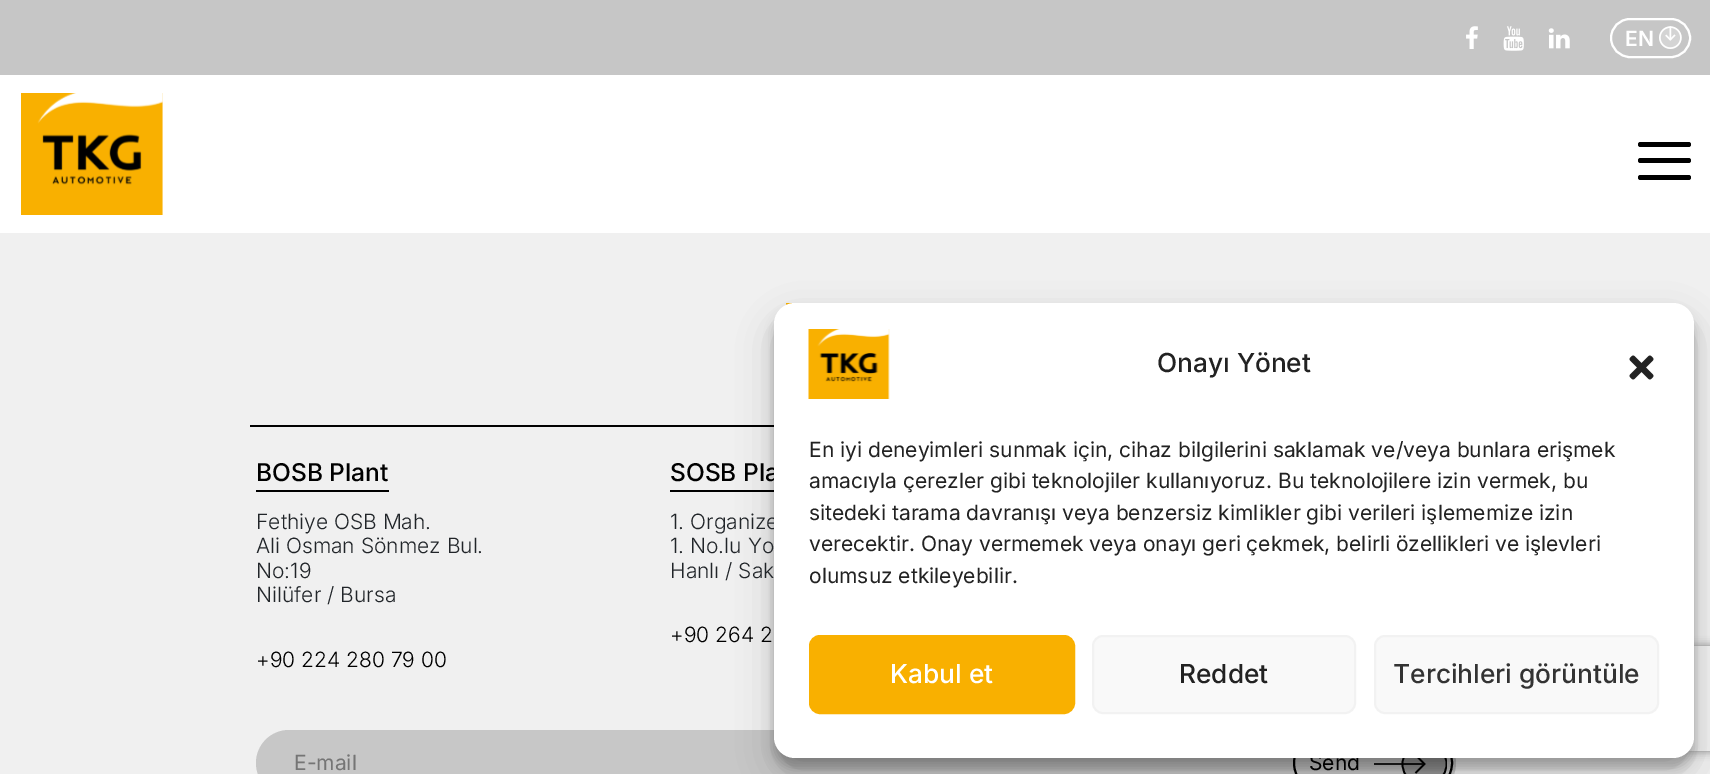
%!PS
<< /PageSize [1710 774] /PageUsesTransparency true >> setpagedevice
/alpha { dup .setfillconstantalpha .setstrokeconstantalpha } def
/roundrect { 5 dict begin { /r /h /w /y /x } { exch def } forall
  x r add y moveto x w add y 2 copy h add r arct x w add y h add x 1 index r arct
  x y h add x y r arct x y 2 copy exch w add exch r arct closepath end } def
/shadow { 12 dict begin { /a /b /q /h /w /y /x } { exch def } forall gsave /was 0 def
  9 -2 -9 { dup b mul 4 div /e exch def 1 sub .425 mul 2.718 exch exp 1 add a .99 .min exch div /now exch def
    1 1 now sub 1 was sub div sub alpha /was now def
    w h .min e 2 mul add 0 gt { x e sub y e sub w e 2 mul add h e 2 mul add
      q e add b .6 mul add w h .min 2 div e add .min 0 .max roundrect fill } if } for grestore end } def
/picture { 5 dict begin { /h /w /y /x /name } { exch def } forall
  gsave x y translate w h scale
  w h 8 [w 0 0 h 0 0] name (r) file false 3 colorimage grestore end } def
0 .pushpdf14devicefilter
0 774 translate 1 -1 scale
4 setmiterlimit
1 setgray
0 0 1710 774 rectfill
0.776 setgray
0 0 1710 75 rectfill
(img1.rgb) 1466 26 12 23 picture
(img2.rgb) 1503 26 21 25 picture
(img3.rgb) 1548 28 22 21 picture
1 setgray
2 setlinewidth
1611 19 79 38 19 roundrect stroke
/Inter-SemiBold [21 0 0 -21 0 0] selectfont
1625 46 moveto (EN) show
(img4.rgb) 1659 26 23 23 picture
(img5.rgb) 21 93 142 122 picture
0 setgray
1638 142 53 5 2.5 roundrect fill
1638 158 53 5 2.5 roundrect fill
1638 175 53 5 2.5 roundrect fill
0.941 setgray
0 233 1710 541 rectfill
(img8.rgb) 786 303 9 2 picture
0 setgray
250 425 524 2 rectfill
670 490 104 2 rectfill
0.78 setgray
256 730 1200 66 33 roundrect fill
0 setgray
1294 734 158 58 29 roundrect stroke
0.584 setgray
newpath 1424.5 740.5 moveto 1437 740.5 1447 751 1447 764 curveto 1447 777 1437 787.5 1424.5 787.5 curveto 1412 787.5 1402 777 1402 764 curveto 1402 751 1412 740.5 1424.5 740.5 curveto closepath fill
gsave
1374 740 73 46 rectclip
0 setgray
1.7 setlinewidth
newpath 1424.5 764 22 0 360 arc closepath stroke
grestore
0.85 alpha
0 setgray
1374 763 50 2 rectfill
1 alpha
1.7 setlinewidth
newpath 1415.5 773 moveto 1424.5 764 lineto 1415.5 755 lineto stroke
774 313 920 455 21 5 0.23 shadow
774 320 920 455 21 17.5 0.19 shadow
/Inter-Medium [24.5 0 0 -24.5 0 0] selectfont
670 481 moveto (SOSB Pla) show
/Inter-Light [21 0 0 -21 0 0] selectfont
0.129 0.145 0.161 setrgbcolor
670 529 moveto (1. Organize) show
/Inter-Regular [21 0 0 -21 0 0] selectfont
0 setgray
1309 770 moveto (Send) show
gsave
newpath 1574 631 moveto 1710 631 lineto 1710 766 lineto 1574 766 lineto closepath 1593 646 moveto 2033 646 lineto 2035 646 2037 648 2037 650 curveto 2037 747 lineto 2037 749 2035 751 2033 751 curveto 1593 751 lineto 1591 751 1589 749 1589 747 curveto 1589 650 lineto 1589 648 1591 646 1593 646 curveto closepath eoclip newpath
0.502 setgray
1589 646 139 105 4 4.5 1 shadow
grestore
1 setgray
774 303 920 455 21 roundrect fill
(img6.rgb) 808 329 82 70 picture
/Inter-Medium [26.25 0 0 -26.25 0 0] selectfont
0.133 setgray
1157 372 moveto (Onayı Yönet) show
(img7.rgb) 1629 355 25 25 picture
/Inter-Regular [21 0 0 -21 0 0] selectfont
809 457 moveto (En iyi deneyimleri sunmak için, cihaz bilgilerini saklamak ve/veya bunlara erişmek) show
809 488 moveto (amacıyla çerezler gibi teknolojiler kullanıyoruz. Bu teknolojilere izin vermek, bu) show
809 520 moveto (sitedeki tarama davranışı veya benzersiz kimlikler gibi verileri işlememize izin) show
809 551 moveto (verecektir. Onay vermemek veya onayı geri çekmek, belirli özellikleri ve işlevleri) show
809 583 moveto (olumsuz etkileyebilir.) show
0.976 0.69 0 setrgbcolor
810 636 264 77 10 roundrect gsave fill grestore
2 setlinewidth
stroke
/Inter-Medium [26.25 0 0 -26.25 0 0] selectfont
1 setgray
890 683 moveto (Kabul et) show
0.976 setgray
1093 636 262 77 10 roundrect gsave fill grestore
0.949 setgray
stroke
0.133 setgray
1179 683 moveto (Reddet) show
0.976 setgray
1375 636 283 77 10 roundrect gsave fill grestore
0.949 setgray
stroke
0.2 setgray
1393 683 moveto (Tercihleri görüntüle) show
0 setgray
256 490 133 2 rectfill
/Inter-Medium [24.5 0 0 -24.5 0 0] selectfont
256 481 moveto (BOSB Plant) show
/Inter-Light [21 0 0 -21 0 0] selectfont
0.129 0.145 0.161 setrgbcolor
256 529 moveto (Fethiye OSB Mah.) show
256 553 moveto (Ali Osman Sönmez Bul.) show
256 578 moveto (No:19) show
256 602 moveto (Nilüfer / Bursa) show
0 setgray
256 667 moveto (+90 224 280 79 00) show
0.129 0.145 0.161 setrgbcolor
670 553 moveto (1. No.lu Yo) show
670 578 moveto (Hanlı / Sak) show
0 setgray
670 642 moveto (+90 264 2) show
/Inter-Regular [21 0 0 -21 0 0] selectfont
0.459 setgray
294 770 moveto (E-mail) show
.poppdf14devicefilter showpage
